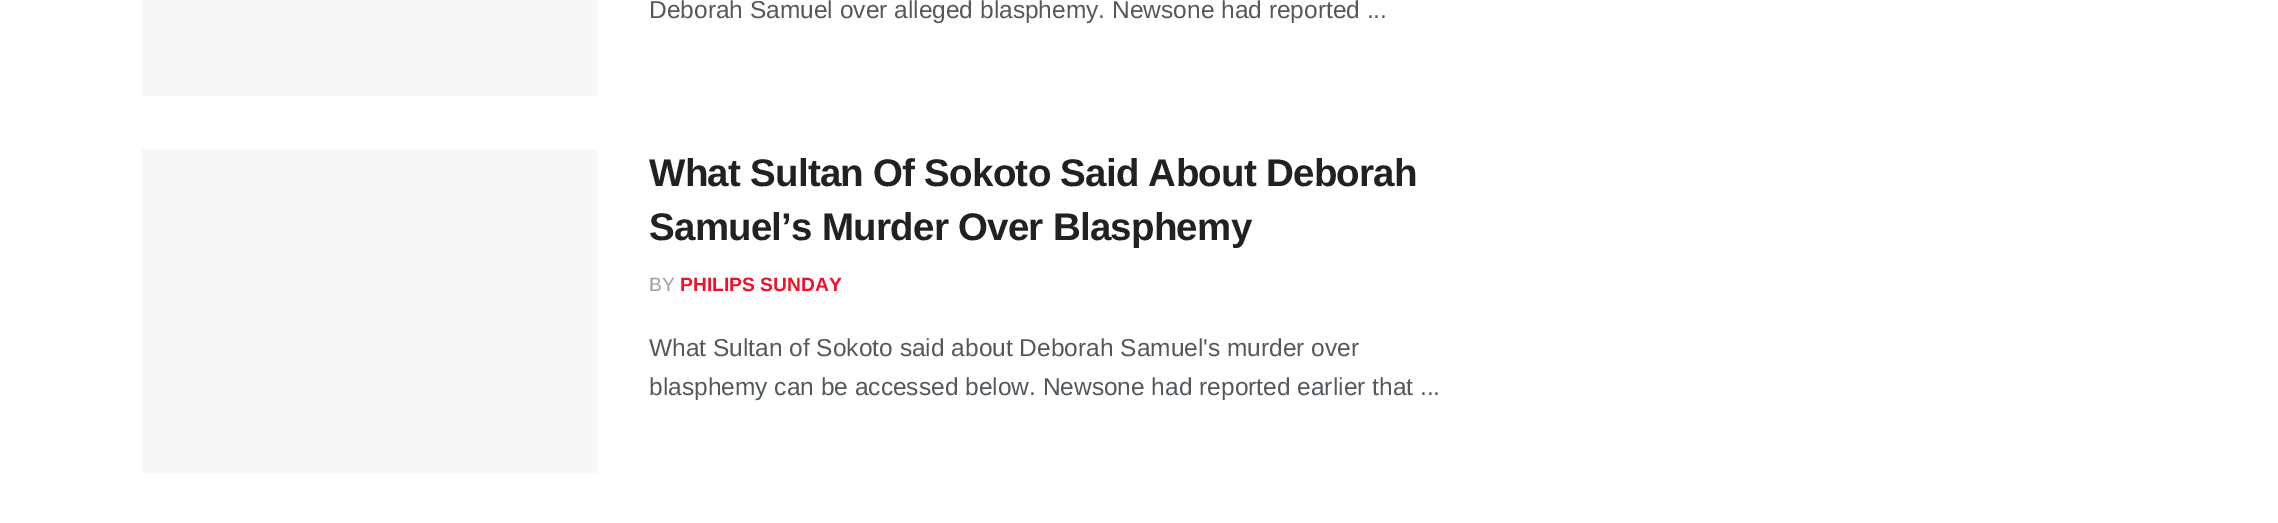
%!PS
<< /PageSize [2278 523] >> setpagedevice
0 523 translate 1 -1 scale
4 setmiterlimit
1 setgray
0 0 2278 523 rectfill
0.969 setgray
142 0 455 96 rectfill
/LiberationSans-Regular [24.5 0 0 -24.5 0 0] selectfont
0.325 0.345 0.361 setrgbcolor
649 18 moveto (Deborah Samuel over alleged blasphemy. Newsone had reported ...) show
0.969 setgray
142 149 455 324 rectfill
/LiberationSans-Bold [38.5 0 0 -38.5 0 0] selectfont
0.129 setgray
649 186 moveto -0.75 0 (What Sultan Of Sokoto Said About Deborah) ashow
649 240 moveto -0.75 0 (Samuel’s Murder Over Blasphemy) ashow
/LiberationSans-Regular [19.25 0 0 -19.25 0 0] selectfont
0.627 setgray
649 291 moveto (BY) show
/LiberationSans-Bold [19.25 0 0 -19.25 0 0] selectfont
0.969 0.051 0.157 setrgbcolor
680 291 moveto (PHILIPS SUNDAY) show
/LiberationSans-Regular [24.5 0 0 -24.5 0 0] selectfont
0.325 0.345 0.361 setrgbcolor
649 356 moveto (What Sultan of Sokoto said about Deborah Samuel's murder over) show
649 395 moveto (blasphemy can be accessed below. Newsone had reported earlier that ...) show
showpage
